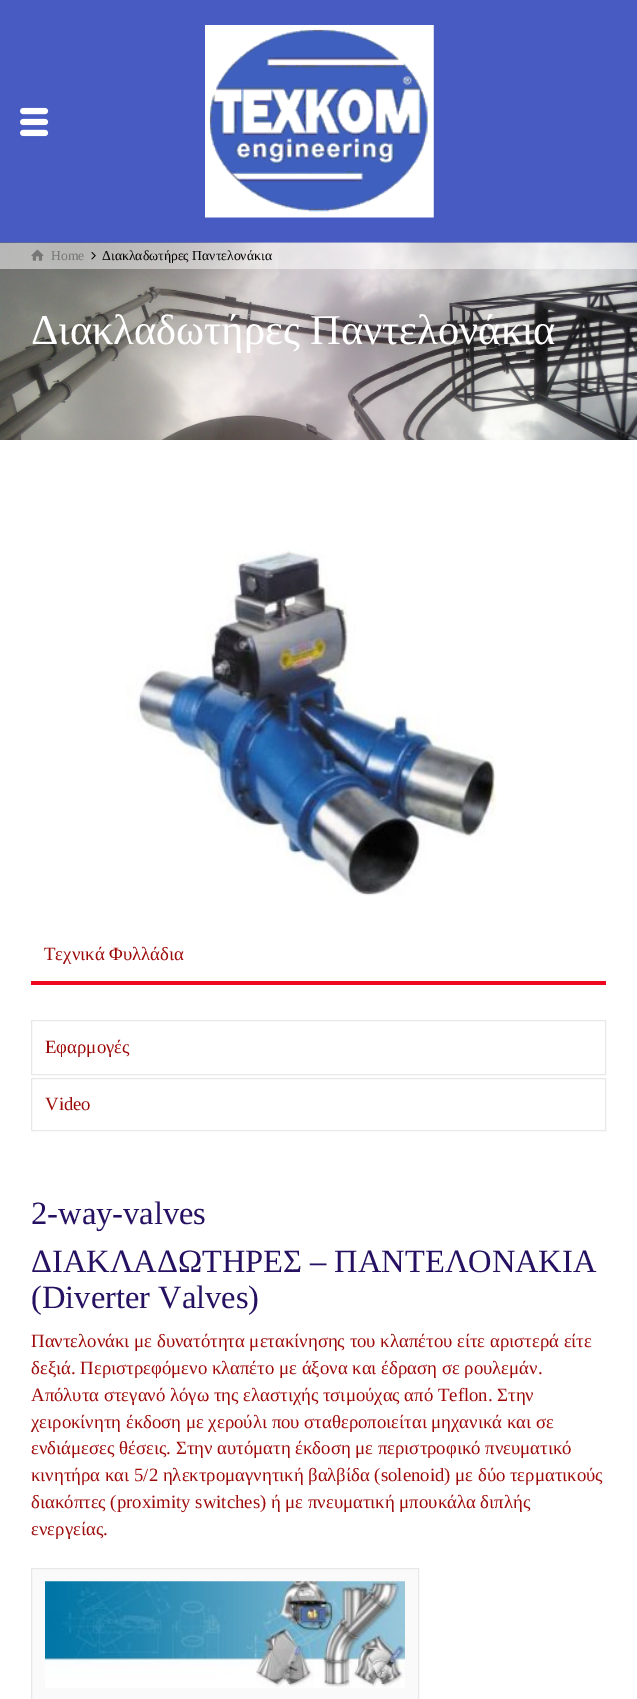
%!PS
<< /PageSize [637 1699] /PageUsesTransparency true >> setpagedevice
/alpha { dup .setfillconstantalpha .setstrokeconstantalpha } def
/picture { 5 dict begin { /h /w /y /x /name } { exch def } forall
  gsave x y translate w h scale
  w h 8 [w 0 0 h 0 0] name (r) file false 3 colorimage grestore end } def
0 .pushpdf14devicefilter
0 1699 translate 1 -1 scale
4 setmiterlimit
0.278 0.357 0.761 setrgbcolor
0 0 637 1699 rectfill
(img1.rgb) 20 107 29 30 picture
(img2.rgb) 205 25 229 193 picture
(img3.rgb) 0 242 637 198 picture
0.5 alpha
1 setgray
0 243 637 26 rectfill
1 alpha
(img4.rgb) 31 249 13 12 picture
/LiberationSerif-Regular [13.75 0 0 -13.75 0 0] selectfont
0.467 setgray
51 260 moveto (Home) show
(img5.rgb) 91 251 5 9 picture
0 setgray
102 260 moveto (Διακλαδωτήρες Παντελονάκια) show
/LiberationSerif-Regular [42.5 0 0 -42.5 0 0] selectfont
1 setgray
31 344 moveto (Διακλαδωτήρες Παντελονάκια) show
0 440 637 1259 rectfill
(img6.rgb) 126 549 371 347 picture
0.937 0.027 0.125 setrgbcolor
31 981 575 4 rectfill
/LiberationSerif-Regular [18.75 0 0 -18.75 0 0] selectfont
0.62 0.039 0.039 setrgbcolor
44 960 moveto (Τεχνικά Φυλλάδια) show
0.91 setgray
31.5 1020.5 574 54 rectstroke
0.62 0.039 0.039 setrgbcolor
45 1053 moveto (Εφαρμογές) show
0.91 setgray
31.5 1078.5 574 52 rectstroke
0.62 0.039 0.039 setrgbcolor
45 1110 moveto (Video) show
/LiberationSerif-Regular [32.5 0 0 -32.5 0 0] selectfont
0.149 0.063 0.38 setrgbcolor
31 1224 moveto (2-way-valves) show
31 1272 moveto (ΔΙΑΚΛΑΔΩΤΗΡΕΣ – ΠΑΝΤΕΛΟΝΑΚΙΑ) show
31 1308 moveto (\(Diverter Valves\)) show
/LiberationSerif-Regular [18.75 0 0 -18.75 0 0] selectfont
0.62 0.039 0.039 setrgbcolor
31 1347 moveto (Παντελονάκι με δυνατότητα μετακίνησης του κλαπέτου είτε αριστερά είτε) show
31 1374 moveto (δεξιά. Περιστρεφόμενο κλαπέτο με άξονα και έδραση σε ρουλεμάν.) show
31 1401 moveto (Απόλυτα στεγανό λόγω της ελαστιχής τσιμούχας από Teflon. Στην) show
31 1428 moveto (χειροκίνητη έκδοση με χερούλι που σταθεροποιείται μηχανικά και σε) show
31 1454 moveto (ενδιάμεσες θέσεις. Στην αυτόματη έκδοση με περιστροφικό πνευματικό) show
31 1481 moveto (κινητήρα και 5/2 ηλεκτρομαγνητική βαλβίδα \(solenoid\) με δύο τερματικούς) show
31 1508 moveto (διακόπτες \(proximity switches\) ή με πνευματική μπουκάλα διπλής) show
31 1535 moveto (ενεργείας.) show
0.98 setgray
newpath 31.5 1568.5 moveto 418.5 1568.5 lineto 418.5 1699.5 lineto 31.5 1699.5 lineto closepath gsave fill grestore
0.91 setgray
stroke
(img7.rgb) 45 1581 360 107 picture
.poppdf14devicefilter showpage
